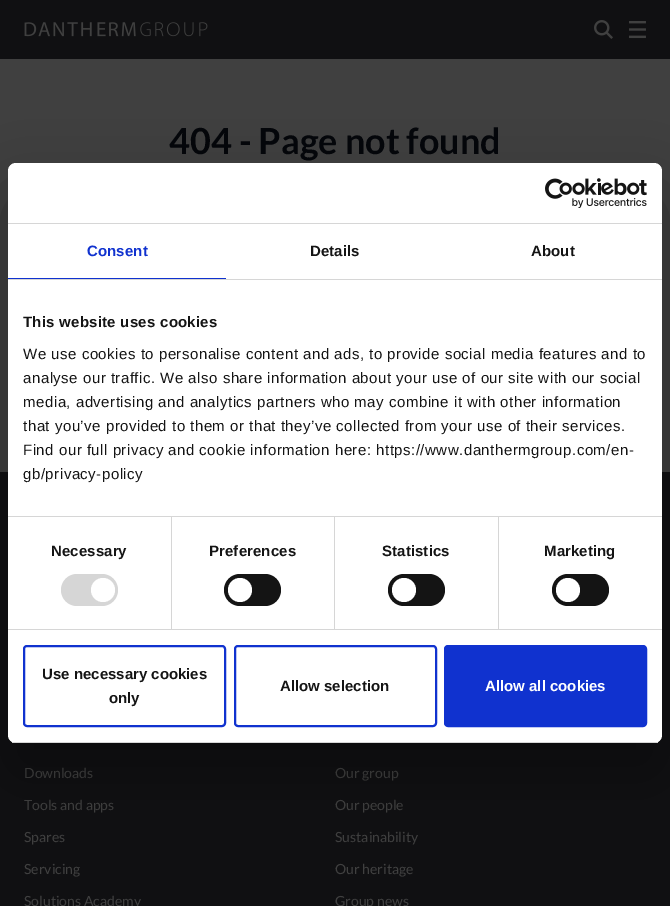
%!PS
<< /PageSize [670 906] /PageUsesTransparency true >> setpagedevice
/alpha { dup .setfillconstantalpha .setstrokeconstantalpha } def
/roundrect { 5 dict begin { /r /h /w /y /x } { exch def } forall
  x r add y moveto x w add y 2 copy h add r arct x w add y h add x 1 index r arct
  x y h add x y r arct x y 2 copy exch w add exch r arct closepath end } def
/shadow { 12 dict begin { /a /b /q /h /w /y /x } { exch def } forall gsave /was 0 def
  9 -2 -9 { dup b mul 4 div /e exch def 1 sub .425 mul 2.718 exch exp 1 add a .99 .min exch div /now exch def
    1 1 now sub 1 was sub div sub alpha /was now def
    w h .min e 2 mul add 0 gt { x e sub y e sub w e 2 mul add h e 2 mul add
      q e add b .6 mul add w h .min 2 div e add .min 0 .max roundrect fill } if } for grestore end } def
/picture { 5 dict begin { /h /w /y /x /name } { exch def } forall
  gsave x y translate w h scale
  w h 8 [w 0 0 h 0 0] name (r) file false 3 colorimage grestore end } def
0 .pushpdf14devicefilter
0 906 translate 1 -1 scale
4 setmiterlimit
0.251 setgray
0 0 670 906 rectfill
0.063 0.063 0.071 setrgbcolor
0 0 670 59 rectfill
(img1.rgb) 24 22 184 15 picture
(img2.rgb) 594 20 19 19 picture
(img3.rgb) 629 21 17 18 picture
/Lato-Bold [36 0 0 -36 0 0] selectfont
0.016 0.024 0.039 setrgbcolor
169 154 moveto (404 - Page not found) show
0.063 0.063 0.071 setrgbcolor
0 472 670 434 rectfill
/Lato-Regular [14 0 0 -14 0 0] selectfont
0.251 setgray
24 778 moveto (Downloads) show
24 810 moveto (Tools and apps) show
24 842 moveto (Spares) show
24 874 moveto (Servicing) show
24 906 moveto (Solutions Academy) show
335 778 moveto (Our group) show
335 810 moveto (Our people) show
335 842 moveto (Sustainability) show
335 874 moveto (Our heritage) show
335 906 moveto (Group news) show
0 setgray
8 195 654 580 8 34 0.3 shadow
1 setgray
8 163 654 580 8 roundrect fill
0.839 setgray
8 223 654 1 rectfill
(img4.rgb) 545 178 102 30 picture
8 279 654 1 rectfill
0.063 0.196 0.812 setrgbcolor
8 278 218 1 rectfill
/LiberationSans-Bold [15 0 0 -15 0 0] selectfont
87 256 moveto 0.1 0 (Consent) ashow
0.078 setgray
310 256 moveto 0.1 0 (Details) ashow
531 256 moveto 0.1 0 (About) ashow
0.839 setgray
8 516 654 1 rectfill
0.078 setgray
23 327 moveto 0.25 0 (This website uses cookies) ashow
/LiberationSans-Regular [15 0 0 -15 0 0] selectfont
23 359 moveto 0.5 0 (We use cookies to personalise content and ads, to provide social media features and to) ashow
23 383 moveto 0.5 0 (analyse our traffic. We also share information about your use of our site with our social) ashow
23 407 moveto 0.5 0 (media, advertising and analytics partners who may combine it with other information) ashow
23 431 moveto 0.5 0 (that you’ve provided to them or that they’ve collected from your use of their services.) ashow
23 455 moveto 0.5 0 (Find our full privacy and cookie information here: https://www.danthermgroup.com/en-) ashow
23 479 moveto 0.5 0 (gb/privacy-policy) ashow
0.839 setgray
8 629 654 1 rectfill
171 517 1 112 rectfill
/LiberationSans-Bold [15 0 0 -15 0 0] selectfont
0.078 setgray
51 556 moveto 0.1 0 (Necessary) ashow
0.839 setgray
61 574 57 32 16 roundrect fill
1 setgray
newpath 103 590 12 0 360 arc closepath fill
0.839 setgray
334 517 1 112 rectfill
0.078 setgray
209 556 moveto 0.1 0 (Preferences) ashow
224 574 57 32 16 roundrect fill
1 setgray
newpath 240 590 12 0 360 arc closepath fill
0.839 setgray
498 517 1 112 rectfill
0.078 setgray
382 556 moveto 0.1 0 (Statistics) ashow
388 574 57 32 16 roundrect fill
1 setgray
newpath 404 590 12 0 360 arc closepath fill
0.078 setgray
544 556 moveto 0.1 0 (Marketing) ashow
552 574 57 32 16 roundrect fill
1 setgray
newpath 568 590 12 0 360 arc closepath fill
gsave
8 163 654 580 8 roundrect clip newpath
0.839 setgray
8 742 654 1 rectfill
grestore
0.063 0.196 0.812 setrgbcolor
2 setlinewidth
24 646 201 80 3 roundrect stroke
0.078 setgray
42 679 moveto (Use necessary cookies) show
109 703 moveto (only) show
0.063 0.196 0.812 setrgbcolor
235 646 201 80 3 roundrect stroke
0.078 setgray
280 691 moveto (Allow selection) show
0.063 0.196 0.812 setrgbcolor
445 646 201 80 3 roundrect gsave fill grestore
stroke
1 setgray
485 691 moveto (Allow all cookies) show
.poppdf14devicefilter showpage
